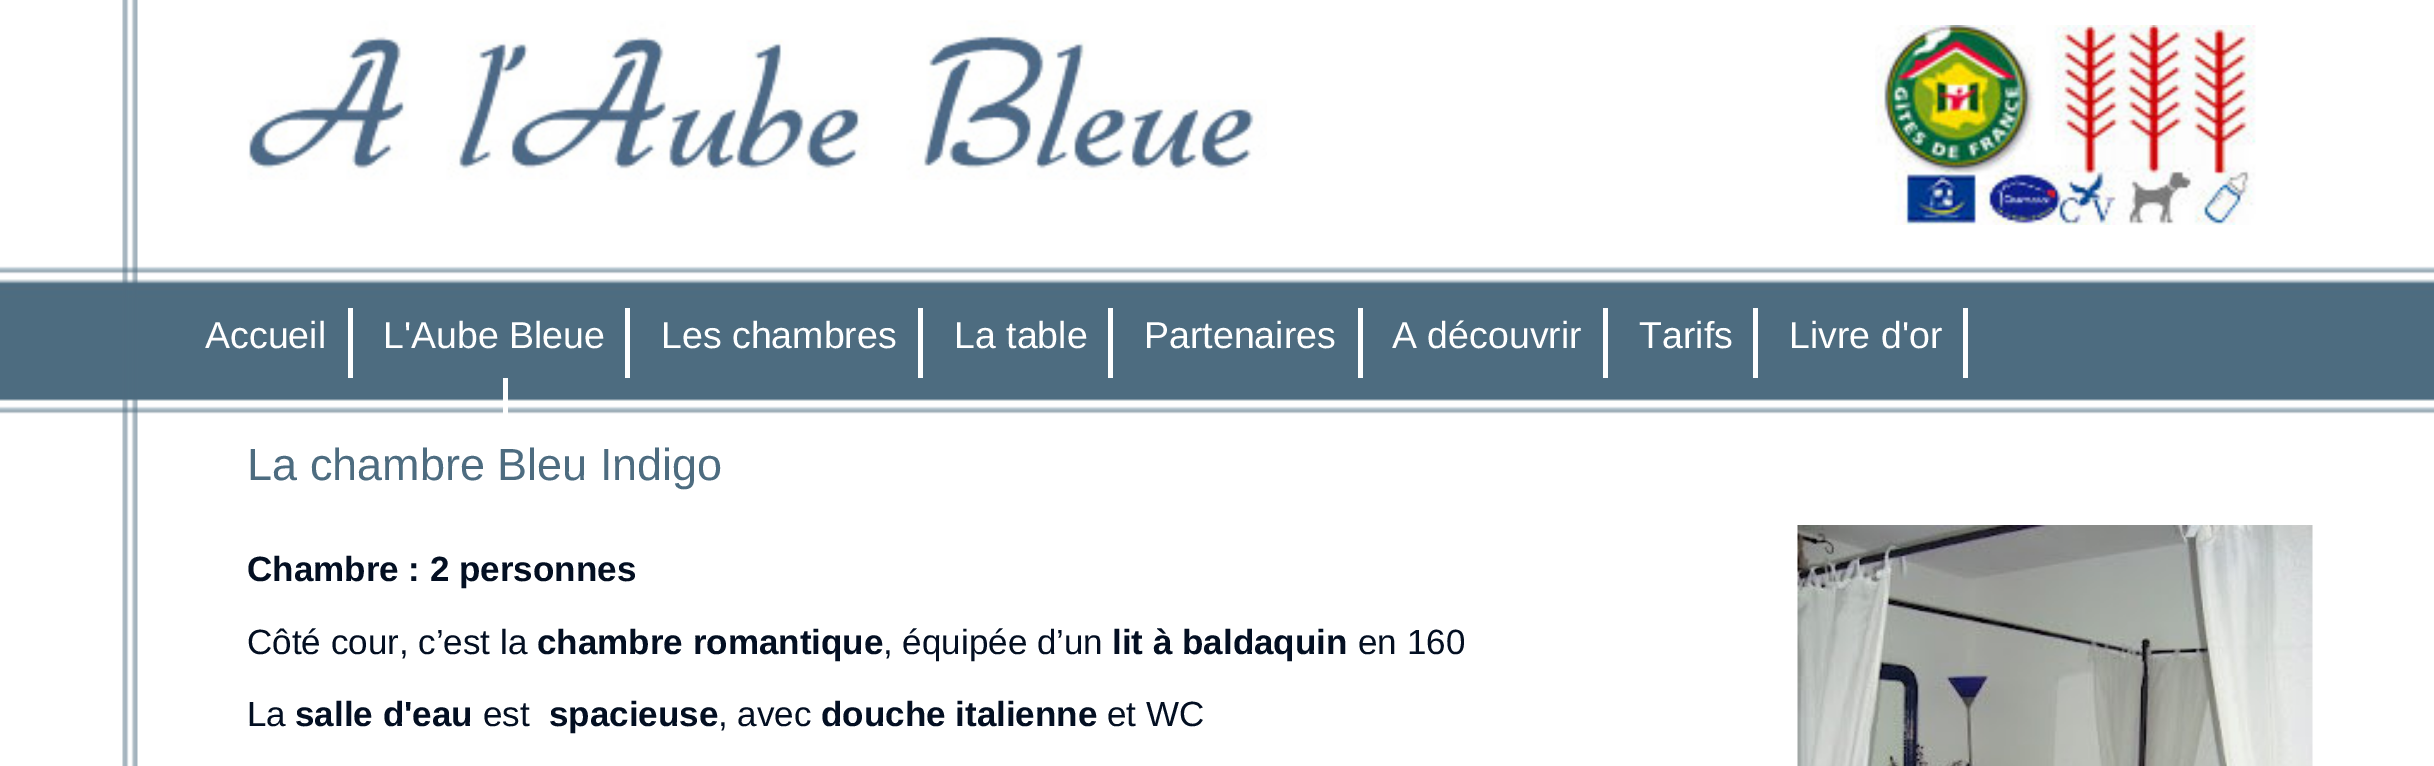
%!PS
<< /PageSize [2434 766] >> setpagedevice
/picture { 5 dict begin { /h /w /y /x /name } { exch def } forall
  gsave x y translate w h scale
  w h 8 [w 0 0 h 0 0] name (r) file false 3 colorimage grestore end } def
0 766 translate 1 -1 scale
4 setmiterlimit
1 setgray
0 0 2434 766 rectfill
(img1.rgb) 0 266 2434 148 picture
(img2.rgb) 122 0 16 766 picture
(img3.rgb) 247 20 1020 160 picture
(img4.rgb) 1875 25 381 200 picture
348 308 5 70 rectfill
/LiberationSans-Regular [37.5 0 0 -37.5 0 0] selectfont
205 348 moveto (Accueil) show
625 308 5 70 rectfill
383 348 moveto (L'Aube Bleue) show
918 308 5 70 rectfill
661 348 moveto (Les chambres) show
1108 308 5 70 rectfill
954 348 moveto (La table) show
1358 308 5 70 rectfill
1144 348 moveto (Partenaires) show
1603 308 5 70 rectfill
1392 348 moveto (A découvrir) show
1753 308 5 70 rectfill
1639 348 moveto (Tarifs) show
1963 308 5 70 rectfill
1789 348 moveto (Livre d'or) show
503 378 5 36 rectfill
/LiberationSans-Regular [45 0 0 -45 0 0] selectfont
0.302 0.424 0.502 setrgbcolor
247 480 moveto (La chambre Bleu Indigo) show
/LiberationSans-Bold [35 0 0 -35 0 0] selectfont
0.012 0.059 0.133 setrgbcolor
247 581 moveto (Chambre : 2 personnes) show
(img5.rgb) 1797 525 516 241 picture
/LiberationSans-Regular [35 0 0 -35 0 0] selectfont
247 654 moveto (Côté cour, c’est la) show
/LiberationSans-Bold [35 0 0 -35 0 0] selectfont
537 654 moveto (chambre romantique) show
/LiberationSans-Regular [35 0 0 -35 0 0] selectfont
883 654 moveto (, équipée d’un) show
/LiberationSans-Bold [35 0 0 -35 0 0] selectfont
1112 654 moveto (lit à baldaquin) show
/LiberationSans-Regular [35 0 0 -35 0 0] selectfont
1358 654 moveto (en 160) show
247 726 moveto (La) show
/LiberationSans-Bold [35 0 0 -35 0 0] selectfont
295 726 moveto (salle d'eau) show
/LiberationSans-Regular [35 0 0 -35 0 0] selectfont
483 726 moveto (est) show
/LiberationSans-Bold [35 0 0 -35 0 0] selectfont
549 726 moveto (spacieuse) show
/LiberationSans-Regular [35 0 0 -35 0 0] selectfont
718 726 moveto (, avec) show
/LiberationSans-Bold [35 0 0 -35 0 0] selectfont
821 726 moveto (douche italienne) show
/LiberationSans-Regular [35 0 0 -35 0 0] selectfont
1107 726 moveto (et WC) show
showpage
